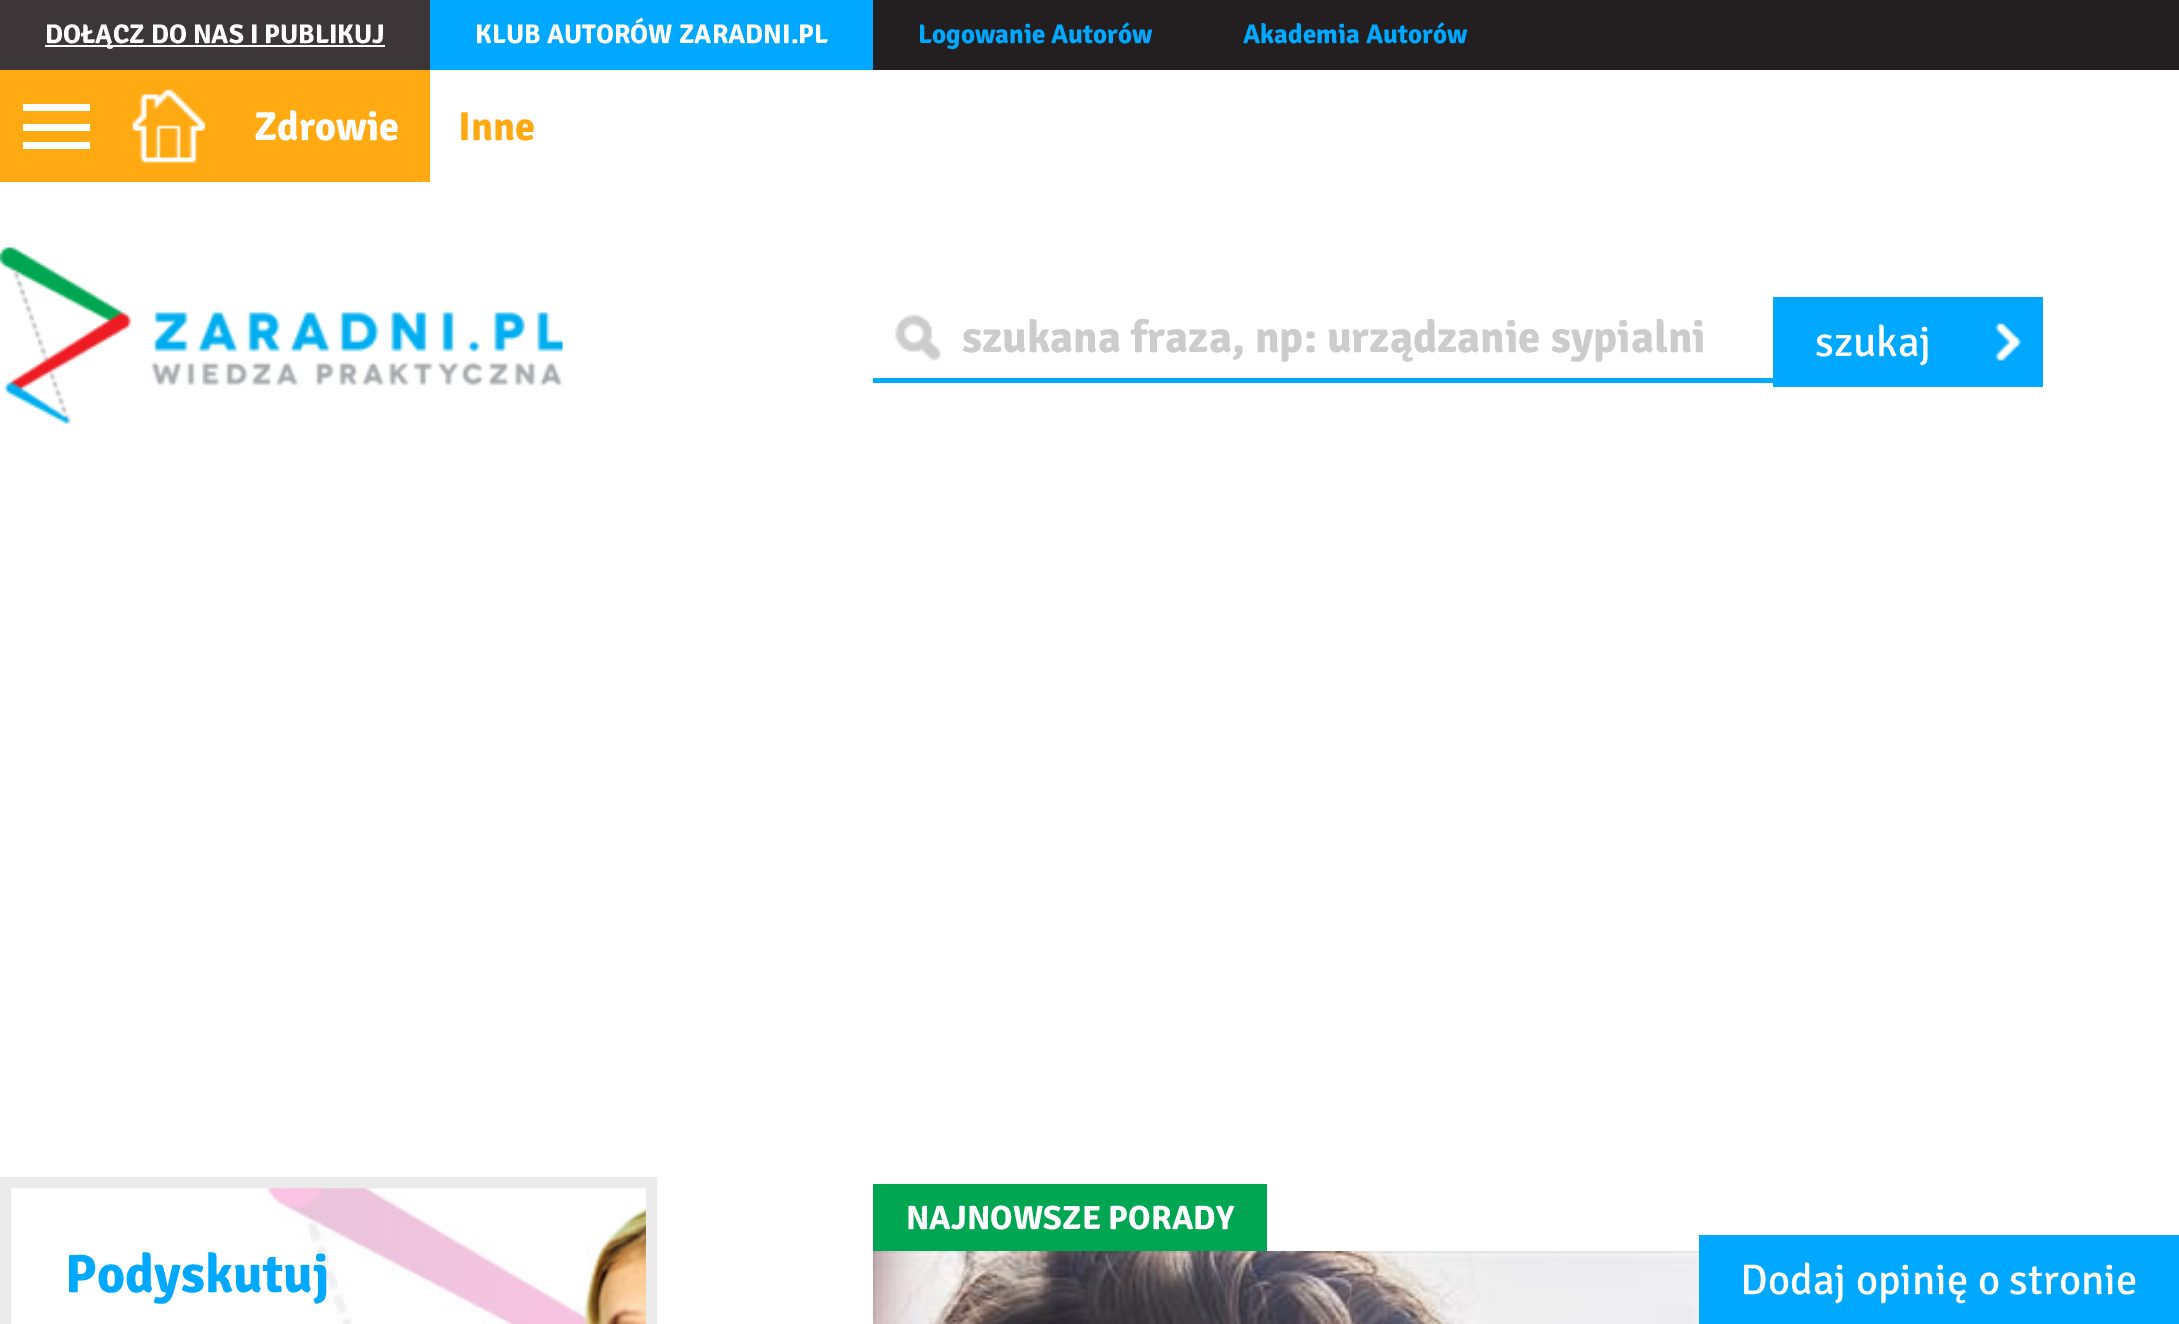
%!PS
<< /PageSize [2179 1324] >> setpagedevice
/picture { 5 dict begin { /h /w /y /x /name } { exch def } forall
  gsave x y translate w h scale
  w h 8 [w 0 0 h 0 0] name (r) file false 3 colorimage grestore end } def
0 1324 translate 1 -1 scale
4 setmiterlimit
1 setgray
0 0 2179 1324 rectfill
0.137 0.122 0.125 setrgbcolor
873 0 1306 70 rectfill
0.239 0.212 0.22 setrgbcolor
0 0 430 70 rectfill
1 setgray
45 45 340 2 rectfill
/Signika-Bold [27 0 0 -27 0 0] selectfont
45 43 moveto (DOŁĄCZ DO NAS I PUBLIKUJ) show
0 0.659 1 setrgbcolor
430 0 443 70 rectfill
1 setgray
475 43 moveto (KLUB AUTORÓW ZARADNI.PL) show
0 0.659 1 setrgbcolor
918 43 moveto (Logowanie Autorów) show
1243 43 moveto (Akademia Autorów) show
1 0.663 0.075 setrgbcolor
0 70 225 112 rectfill
1 setgray
23 104 67 7 rectfill
23 124 67 7 rectfill
23 142 67 7 rectfill
(img1.rgb) 132 89 74 74 picture
1 0.663 0.075 setrgbcolor
225 70 205 112 rectfill
/Signika-Bold [40.5 0 0 -40.5 0 0] selectfont
1 setgray
254 140 moveto (Zdrowie) show
1 0.663 0.075 setrgbcolor
458 140 moveto (Inne) show
(img2.rgb) 0 247 563 177 picture
(img3.rgb) 895 314 46 47 picture
0 0.659 1 setrgbcolor
873 378 900 5 rectfill
/Signika-Bold [45 0 0 -45 0 0] selectfont
0.8 setgray
962 352 moveto (szukana fraza, np: urządzanie sypialni) show
0 0.659 1 setrgbcolor
1773 297 270 90 rectfill
/Signika-Regular [42.75 0 0 -42.75 0 0] selectfont
1 setgray
1815 356 moveto (szukaj) show
(img4.rgb) 1995 323 27 38 picture
0 0.651 0.318 setrgbcolor
873 1184 394 67 rectfill
/Signika-Bold [33.75 0 0 -33.75 0 0] selectfont
1 setgray
906 1229 moveto (NAJNOWSZE PORADY) show
(img5.rgb) 873 1251 826 73 picture
(img6.rgb) 264 1188 382 136 picture
0.922 setgray
11 setlinewidth
5.5 1182.5 646 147 rectstroke
/Signika-Bold [54 0 0 -54 0 0] selectfont
0 0.659 1 setrgbcolor
65 1292 moveto (Podyskutuj) show
1699 1235 480 89 rectfill
/Signika-Regular [42.75 0 0 -42.75 0 0] selectfont
1 setgray
1740 1294 moveto (Dodaj opinię o stronie) show
showpage
